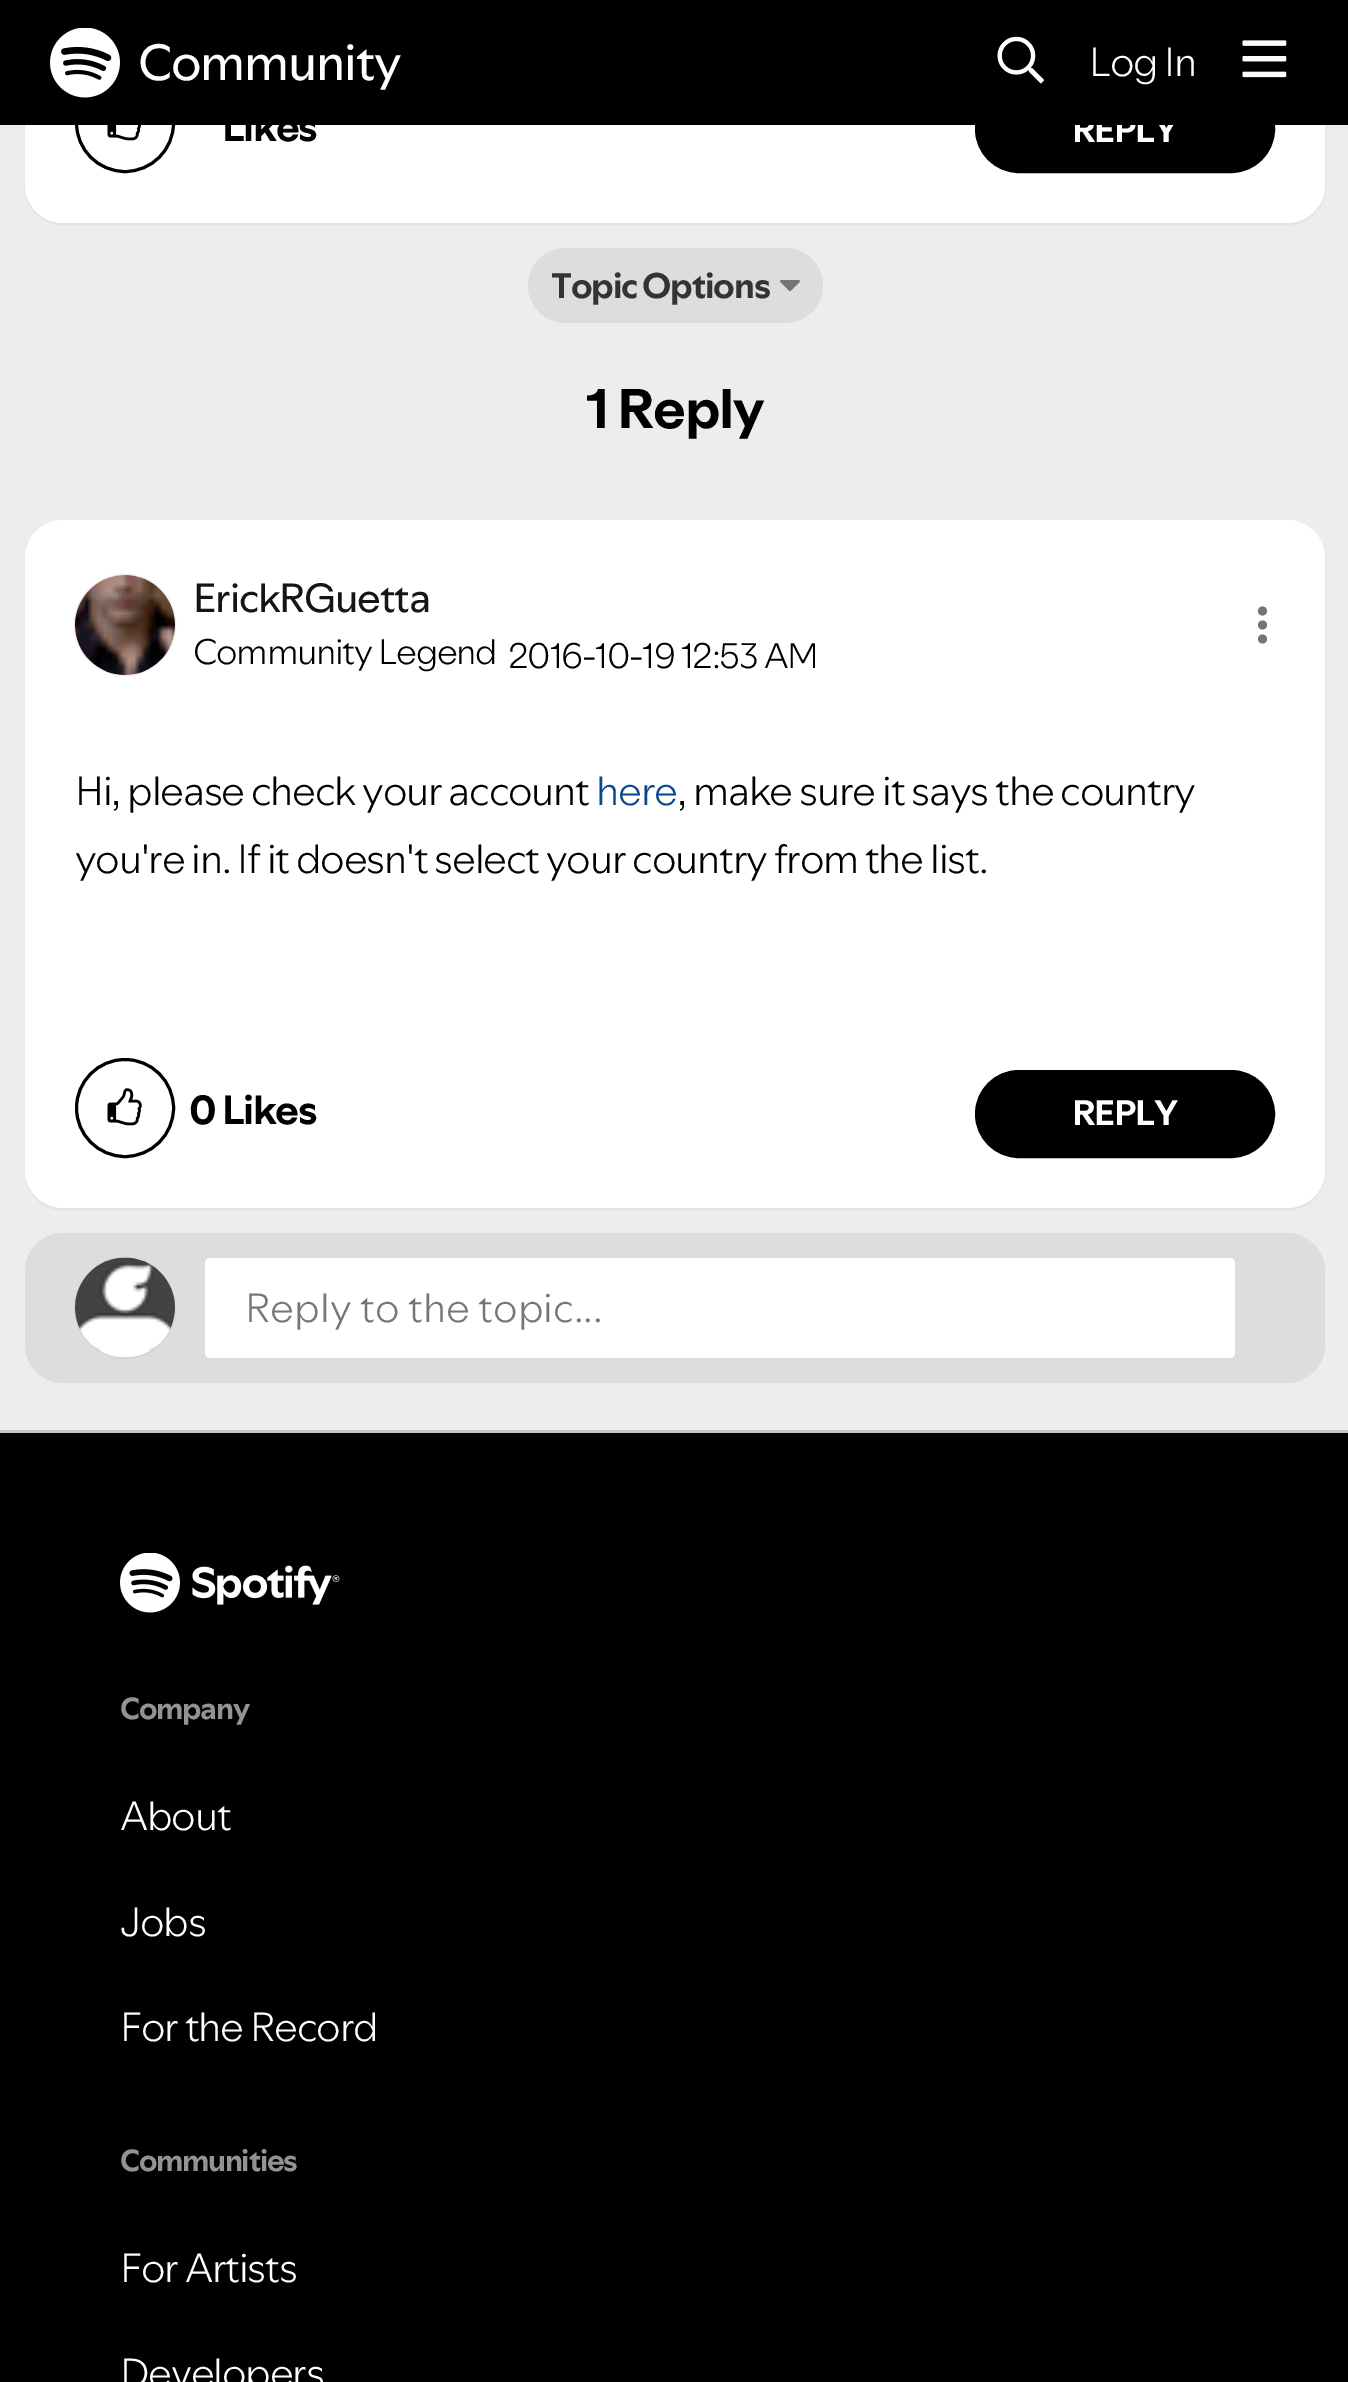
%!PS
<< /PageSize [1348 2382] /PageUsesTransparency true >> setpagedevice
/alpha { dup .setfillconstantalpha .setstrokeconstantalpha } def
/roundrect { 5 dict begin { /r /h /w /y /x } { exch def } forall
  x r add y moveto x w add y 2 copy h add r arct x w add y h add x 1 index r arct
  x y h add x y r arct x y 2 copy exch w add exch r arct closepath end } def
/shadow { 12 dict begin { /a /b /q /h /w /y /x } { exch def } forall gsave /was 0 def
  9 -2 -9 { dup b mul 4 div /e exch def 1 sub .425 mul 2.718 exch exp 1 add a .99 .min exch div /now exch def
    1 1 now sub 1 was sub div sub alpha /was now def
    w h .min e 2 mul add 0 gt { x e sub y e sub w e 2 mul add h e 2 mul add
      q e add b .6 mul add w h .min 2 div e add .min 0 .max roundrect fill } if } for grestore end } def
/picture { 5 dict begin { /h /w /y /x /name } { exch def } forall
  gsave x y translate w h scale
  w h 8 [w 0 0 h 0 0] name (r) file false 3 colorimage grestore end } def
0 .pushpdf14devicefilter
0 2382 translate 1 -1 scale
4 setmiterlimit
0.929 setgray
0 0 1348 2382 rectfill
0 setgray
25 -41 1300 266 38 1 0.05 shadow
1 setgray
25 -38 1300 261 38 roundrect fill
0 setgray
3 setlinewidth
newpath 125 123 48.5 0 360 arc closepath stroke
976.5 86.5 297 85 42.5 roundrect gsave fill grestore
stroke
/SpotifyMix-Bold [35 0 0 -35 0 0] selectfont
1 setgray
1072 142 moveto -1.25 0 (REPLY) ashow
0 setgray
0 0 1348 125 rectfill
(img1.rgb) 50 28 70 70 picture
/SpotifyMix-Regular [50 0 0 -50 0 0] selectfont
1 setgray
138 80 moveto -1.25 0 (Community) ashow
(img2.rgb) 997 36 47 48 picture
/SpotifyMix-Light [40 0 0 -40 0 0] selectfont
1089 76 moveto -1.25 0 (Log In) ashow
(img3.rgb) 1242 40 45 38 picture
(img4.rgb) 107 125 34 16 picture
/SpotifyMix-Bold [40 0 0 -40 0 0] selectfont
0 setgray
222 141 moveto -1.25 0 (Likes) ashow
0.867 setgray
528 248 295 75 37.5 roundrect fill
/SpotifyMix-Bold [35 0 0 -35 0 0] selectfont
0.2 setgray
551 298 moveto -1.25 0 (Topic Options) ashow
(img5.rgb) 780 280 20 12 picture
/SpotifyMix-Bold [55 0 0 -55 0 0] selectfont
0 setgray
586 428 moveto -1.25 0 (1 Reply) ashow
25 523 1300 687 38 1 0.05 shadow
1 setgray
25 520 1300 688 38 roundrect fill
0.769 setgray
75 575 100 100 50 1 1 shadow
(img6.rgb) 75 575 100 100 picture
/SpotifyMix-Regular [40 0 0 -40 0 0] selectfont
0.098 0.078 0.078 setrgbcolor
193 612 moveto -1.25 0 (ErickRGuetta) ashow
/SpotifyMix-Light [35 0 0 -35 0 0] selectfont
0 setgray
193 664 moveto -1.25 0 (Community Legend) ashow
508 668 moveto -1.25 0 (2016-10-19) ashow
681 668 moveto -1.25 0 (12:53 AM) ashow
0.455 setgray
newpath 1262.5 611 4.5 0 360 arc closepath fill
newpath 1262.5 625 4.5 0 360 arc closepath fill
newpath 1262.5 639 4.5 0 360 arc closepath fill
/SpotifyMix-Light [40 0 0 -40 0 0] selectfont
0 setgray
75 805 moveto -1.25 0 (Hi, please check your account) ashow
0.031 0.278 0.569 setrgbcolor
596 805 moveto -1.25 0 (here) ashow
0 setgray
677 805 moveto -1.25 0 (, make sure it says the country) ashow
75 873 moveto -1.25 0 (you're in. If it doesn't select your country from the list.) ashow
newpath 125 1108 48.5 0 360 arc closepath stroke
(img7.rgb) 107 1088 35 38 picture
/SpotifyMix-Bold [40 0 0 -40 0 0] selectfont
189 1124 moveto -1.25 0 (0 Likes) ashow
976.5 1071.5 297 85 42.5 roundrect gsave fill grestore
stroke
/SpotifyMix-Bold [35 0 0 -35 0 0] selectfont
1 setgray
1072 1125 moveto -1.25 0 (REPLY) ashow
0.867 setgray
25 1233 1300 150 38 roundrect fill
0.769 setgray
75 1258 100 100 50 1 1 shadow
(img8.rgb) 75 1257 100 101 picture
1 setgray
205 1258 1030 100 5 roundrect fill
/SpotifyMix-Light [40 0 0 -40 0 0] selectfont
0.463 setgray
245 1322 moveto (Reply to the topic...) show
0.769 setgray
0 1430 1348 3 rectfill
0 setgray
0 1433 1348 949 rectfill
(img9.rgb) 120 1553 220 60 picture
/SpotifyMix-Bold [30 0 0 -30 0 0] selectfont
0.576 setgray
120 1719 moveto -1.25 0 (Company) ashow
/SpotifyMix-Light [40 0 0 -40 0 0] selectfont
1 setgray
120 1830 moveto -1.25 0 (About) ashow
120 1936 moveto -1.25 0 (Jobs) ashow
120 2041 moveto -1.25 0 (For the Record) ashow
/SpotifyMix-Bold [30 0 0 -30 0 0] selectfont
0.576 setgray
120 2171 moveto -1.25 0 (Communities) ashow
/SpotifyMix-Light [40 0 0 -40 0 0] selectfont
1 setgray
120 2282 moveto -1.25 0 (For Artists) ashow
120 2387 moveto -1.25 0 (Developers) ashow
.poppdf14devicefilter showpage
